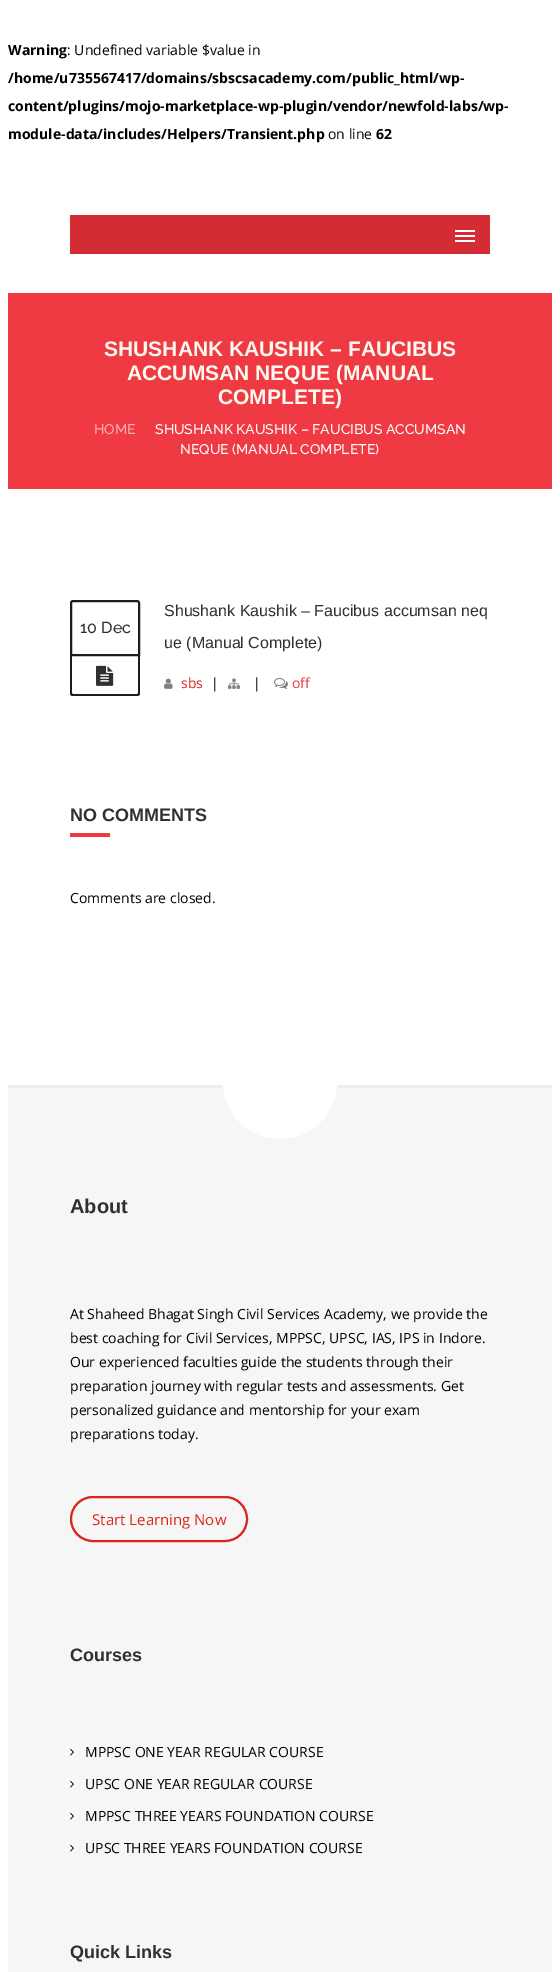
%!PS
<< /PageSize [560 1972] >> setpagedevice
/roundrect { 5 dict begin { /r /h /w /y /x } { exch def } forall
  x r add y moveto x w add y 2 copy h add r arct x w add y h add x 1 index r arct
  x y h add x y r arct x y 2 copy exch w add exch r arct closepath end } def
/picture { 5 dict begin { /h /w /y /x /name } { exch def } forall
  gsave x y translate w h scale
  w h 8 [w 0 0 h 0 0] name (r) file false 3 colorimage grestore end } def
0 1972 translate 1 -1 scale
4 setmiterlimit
1 setgray
0 0 560 1972 rectfill
/OpenSans-Bold [14 0 0 -14 0 0] selectfont
0 setgray
8 55 moveto (Warning) show
/OpenSans-Regular [14 0 0 -14 0 0] selectfont
67 55 moveto (: Undefined variable $value in) show
/OpenSans-Bold [14 0 0 -14 0 0] selectfont
8 83 moveto (/home/u735567417/domains/sbscsacademy.com/public_html/wp-) show
8 111 moveto (content/plugins/mojo-marketplace-wp-plugin/vendor/newfold-labs/wp-) show
8 139 moveto (module-data/includes/Helpers/Transient.php) show
/OpenSans-Regular [14 0 0 -14 0 0] selectfont
328 139 moveto (on line) show
/OpenSans-Bold [14 0 0 -14 0 0] selectfont
376 139 moveto (62) show
0.831 0.173 0.204 setrgbcolor
70 215 420 39 rectfill
1 setgray
455 235 20 2 rectfill
455 230 20 2 rectfill
455 240 20 2 rectfill
0.937 0.227 0.263 setrgbcolor
8 293 544 196 rectfill
/LiberationSans-Bold [21 0 0 -21 0 0] selectfont
1 0.98 0.941 setrgbcolor
104 356 moveto (SHUSHANK KAUSHIK – FAUCIBUS) show
127 380 moveto (ACCUMSAN NEQUE \(MANUAL) show
218 404 moveto (COMPLETE\)) show
/Raleway-Medium [14 0 0 -14 0 0] selectfont
0.976 0.69 0.706 setrgbcolor
94 434 moveto (HOME) show
1 setgray
155 434 moveto (SHUSHANK KAUSHIK – FAUCIBUS ACCUMSAN) show
180 454 moveto (NEQUE \(MANUAL COMPLETE\)) show
0.125 0.11 0.114 setrgbcolor
2 setlinewidth
newpath 73 601 moveto 137 601 lineto 138 601 139 602 139 603 curveto 139 655 lineto 71 655 lineto 71 603 lineto 71 602 72 601 73 601 curveto closepath stroke
/Raleway-Medium [16 0 0 -16 0 0] selectfont
0.188 setgray
80 633 moveto (10 Dec) show
0.125 0.11 0.114 setrgbcolor
newpath 70 656 moveto 140 656 lineto 140 693 lineto 140 695 139 696 137 696 curveto 73 696 lineto 71 696 70 695 70 693 curveto closepath 72 656 moveto 138 656 lineto 138 693 lineto 138 694 138 694 137 694 curveto 73 694 lineto 72 694 72 694 72 693 curveto closepath eofill
(img1.rgb) 96 665 18 21 picture
/LiberationSans-Regular [16 0 0 -16 0 0] selectfont
0.188 setgray
164 616 moveto (Shushank Kaushik – Faucibus accumsan neq) show
164 648 moveto (ue \(Manual Complete\)) show
(img2.rgb) 164 678 9 11 picture
/OpenSans-Regular [14 0 0 -14 0 0] selectfont
0.855 0.145 0.11 setrgbcolor
181 688 moveto (sbs) show
0 setgray
211 688 moveto (|) show
(img3.rgb) 228 678 12 11 picture
253 688 moveto (|) show
(img4.rgb) 274 678 14 11 picture
0.937 0.227 0.263 setrgbcolor
292 688 moveto (off) show
/LiberationSans-Bold [18 0 0 -18 0 0] selectfont
0.188 setgray
70 821 moveto (NO COMMENTS) show
0.937 0.227 0.263 setrgbcolor
70 833 40 4 rectfill
/OpenSans-Regular [14 0 0 -14 0 0] selectfont
0 setgray
70 903 moveto (Comments are closed.) show
0.965 setgray
8 1088 544 884 rectfill
0.929 setgray
8 1085 544 3 rectfill
1 setgray
newpath 280 1082 57 0 360 arc closepath fill
/LiberationSans-Bold [20 0 0 -20 0 0] selectfont
0.188 setgray
70 1213 moveto (About) show
/OpenSans-Regular [14 0 0 -14 0 0] selectfont
0 setgray
70 1319 moveto (At Shaheed Bhagat Singh Civil Services Academy, we provide the) show
70 1343 moveto (best coaching for Civil Services, MPPSC, UPSC, IAS, IPS in Indore.) show
70 1367 moveto (Our experienced faculties guide the students through their) show
70 1391 moveto (preparation journey with regular tests and assessments. Get) show
70 1415 moveto (personalized guidance and mentorship for your exam) show
70 1439 moveto (preparations today.) show
0.855 0.145 0.11 setrgbcolor
71 1497 176 44 22 roundrect stroke
/OpenSans-Regular [15 0 0 -15 0 0] selectfont
92 1525 moveto (Start Learning Now) show
/LiberationSans-Bold [18 0 0 -18 0 0] selectfont
0.188 setgray
70 1661 moveto (Courses) show
(img5.rgb) 70 1748 4 8 picture
/OpenSans-Regular [14 0 0 -14 0 0] selectfont
0 setgray
85 1757 moveto (MPPSC ONE YEAR REGULAR COURSE) show
(img5.rgb) 70 1780 4 8 picture
85 1789 moveto (UPSC ONE YEAR REGULAR COURSE) show
(img5.rgb) 70 1812 4 8 picture
85 1821 moveto (MPPSC THREE YEARS FOUNDATION COURSE) show
(img5.rgb) 70 1844 4 8 picture
85 1853 moveto (UPSC THREE YEARS FOUNDATION COURSE) show
/LiberationSans-Bold [18 0 0 -18 0 0] selectfont
0.188 setgray
70 1958 moveto (Quick Links) show
showpage
